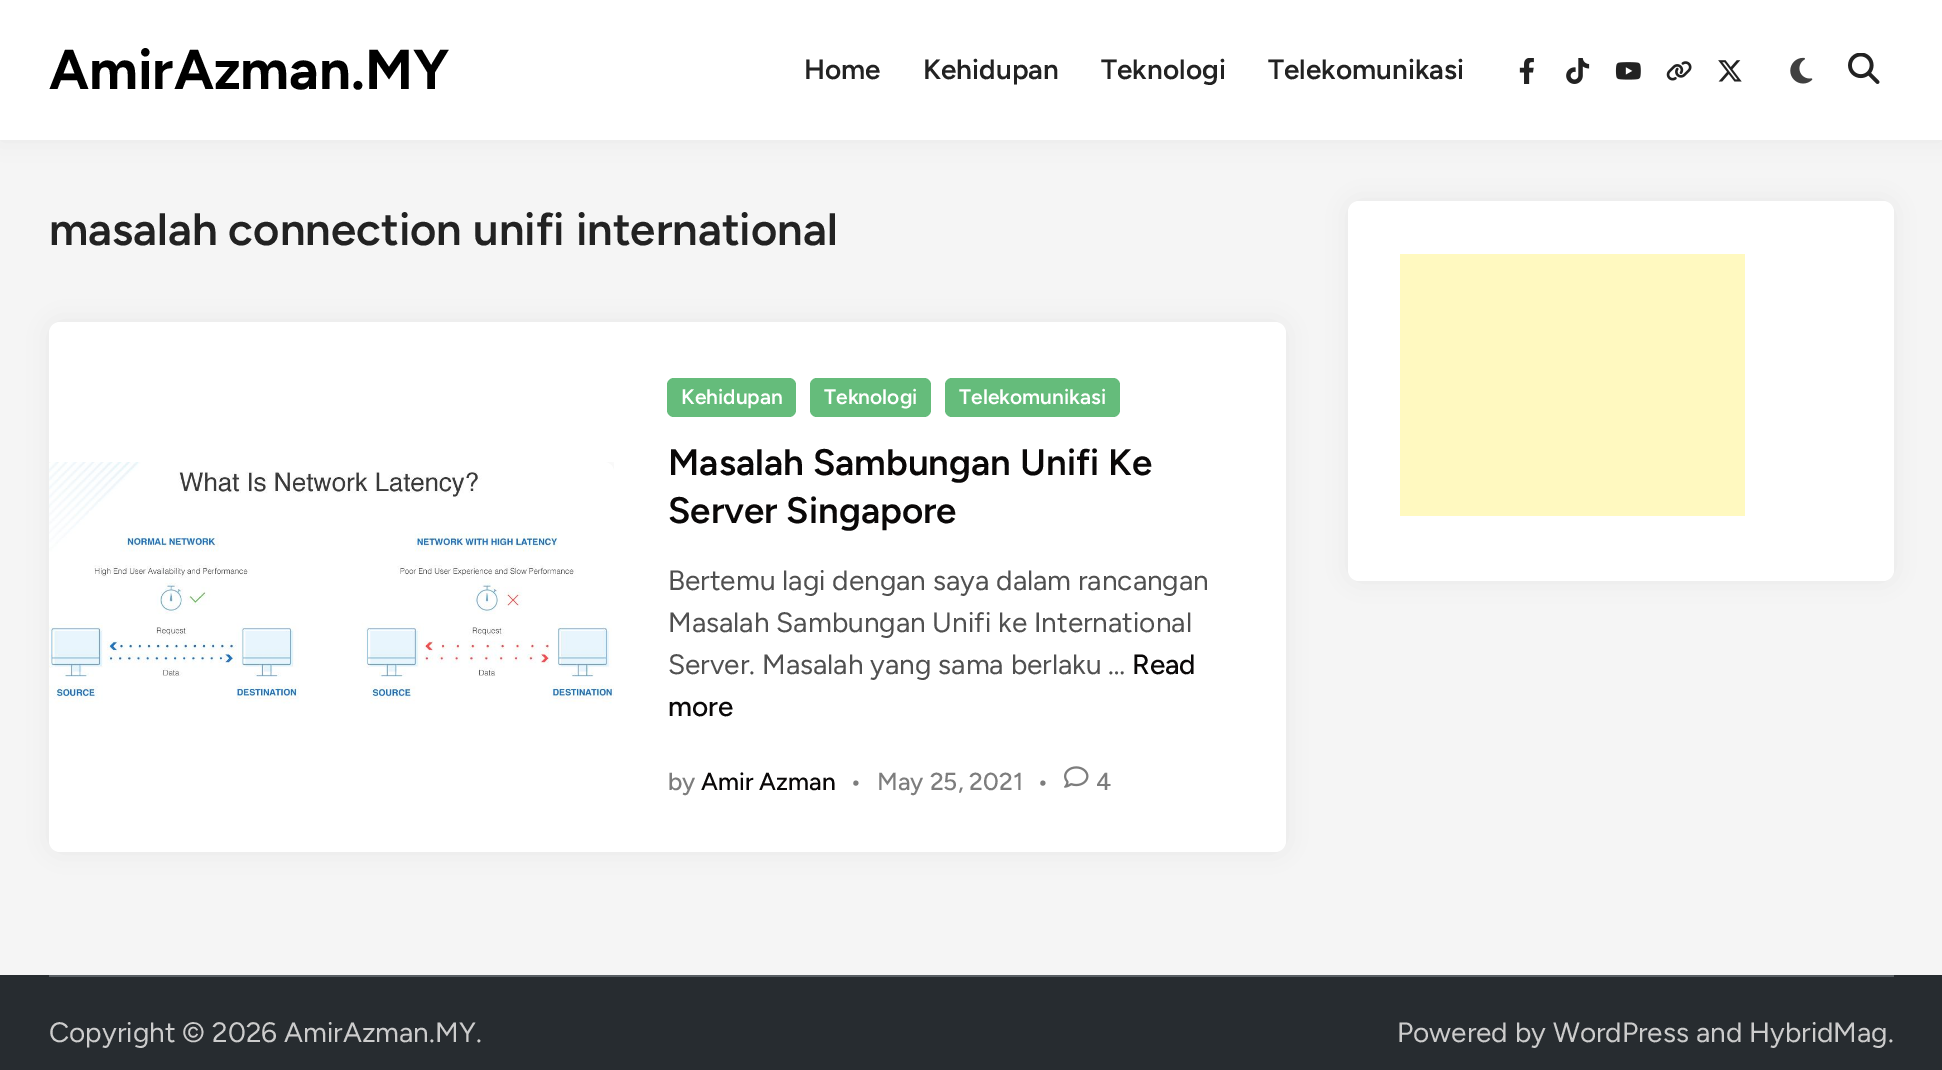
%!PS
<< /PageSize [1942 1070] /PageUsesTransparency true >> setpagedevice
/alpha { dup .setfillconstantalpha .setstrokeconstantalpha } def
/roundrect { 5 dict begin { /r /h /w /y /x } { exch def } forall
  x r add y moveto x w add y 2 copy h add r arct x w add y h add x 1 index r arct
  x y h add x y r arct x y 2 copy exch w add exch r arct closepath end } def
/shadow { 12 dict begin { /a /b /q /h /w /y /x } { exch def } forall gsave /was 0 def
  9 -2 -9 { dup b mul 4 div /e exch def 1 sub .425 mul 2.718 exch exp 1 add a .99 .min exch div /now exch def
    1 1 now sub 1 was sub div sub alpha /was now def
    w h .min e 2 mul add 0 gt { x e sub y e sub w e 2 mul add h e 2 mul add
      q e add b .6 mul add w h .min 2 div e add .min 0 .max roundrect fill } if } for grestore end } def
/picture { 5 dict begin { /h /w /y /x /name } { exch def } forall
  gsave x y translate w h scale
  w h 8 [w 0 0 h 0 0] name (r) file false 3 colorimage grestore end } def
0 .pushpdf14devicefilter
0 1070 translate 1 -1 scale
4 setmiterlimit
0.961 setgray
0 0 1942 1070 rectfill
0 setgray
0 0 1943 140 0 13 0.06 shadow
1 setgray
0 0 1942 140 rectfill
/Figtree-Bold [56 0 0 -56 0 0] selectfont
0 setgray
49 89 moveto (AmirAzman.MY) show
/Figtree-SemiBold [28 0 0 -28 0 0] selectfont
0.133 setgray
804 79 moveto (Home) show
923 79 moveto (Kehidupan) show
1101 79 moveto (Teknologi) show
1268 79 moveto (Telekomunikasi) show
(img1.rgb) 1519 58 15 26 picture
(img2.rgb) 1566 58 24 26 picture
(img3.rgb) 1615 62 26 18 picture
(img4.rgb) 1666 61 26 20 picture
(img5.rgb) 1718 60 24 22 picture
(img6.rgb) 1790 57 23 27 picture
(img7.rgb) 1848 53 32 31 picture
/Figtree-SemiBold [45.5 0 0 -45.5 0 0] selectfont
49 245 moveto (masalah connection unifi international) show
0 setgray
49 322 1237 530 11 13 0.06 shadow
1 setgray
49 322 1237 530 11 roundrect fill
(img8.rgb) 49 462 565 242 picture
0.396 0.737 0.482 setrgbcolor
667 378 129 39 7 roundrect fill
/Figtree-SemiBold [21 0 0 -21 0 0] selectfont
1 setgray
681 404 moveto (Kehidupan) show
0.396 0.737 0.482 setrgbcolor
810 378 121 39 7 roundrect fill
1 setgray
824 404 moveto (Teknologi) show
0.396 0.737 0.482 setrgbcolor
945 378 175 39 7 roundrect fill
1 setgray
959 404 moveto (Telekomunikasi) show
/Figtree-SemiBold [36.75 0 0 -36.75 0 0] selectfont
0.039 0.031 0.031 setrgbcolor
668 475 moveto (Masalah Sambungan Unifi Ke) show
668 523 moveto (Server Singapore) show
/Figtree-Regular [28 0 0 -28 0 0] selectfont
0.314 setgray
668 590 moveto (Bertemu lagi dengan saya dalam rancangan) show
668 632 moveto (Masalah Sambungan Unifi ke International) show
668 674 moveto (Server. Masalah yang sama berlaku …) show
/Figtree-Medium [28 0 0 -28 0 0] selectfont
0.039 0.031 0.031 setrgbcolor
1132 674 moveto (Read) show
668 716 moveto (more) show
/Figtree-Medium [24.5 0 0 -24.5 0 0] selectfont
0.49 setgray
668 790 moveto (by) show
0.039 0.031 0.031 setrgbcolor
701 790 moveto (Amir Azman) show
0.49 setgray
850 790 moveto (•) show
877 790 moveto (May 25, 2021) show
1037 790 moveto (•) show
(img9.rgb) 1064 766 25 22 picture
1096 790 moveto (4) show
0 setgray
1348 201 546 380 11 13 0.06 shadow
1 setgray
1348 201 546 380 11 roundrect fill
1 0.976 0.753 setrgbcolor
1400 254 345 262 rectfill
0.153 0.173 0.188 setrgbcolor
0 975 1942 95 rectfill
0.349 0.373 0.392 setrgbcolor
49 975 1845 2 rectfill
/Figtree-Regular [28 0 0 -28 0 0] selectfont
0.8 setgray
49 1042 moveto (Copyright © 2026 AmirAzman.MY.) show
1397 1042 moveto (Powered by WordPress and HybridMag.) show
.poppdf14devicefilter showpage
